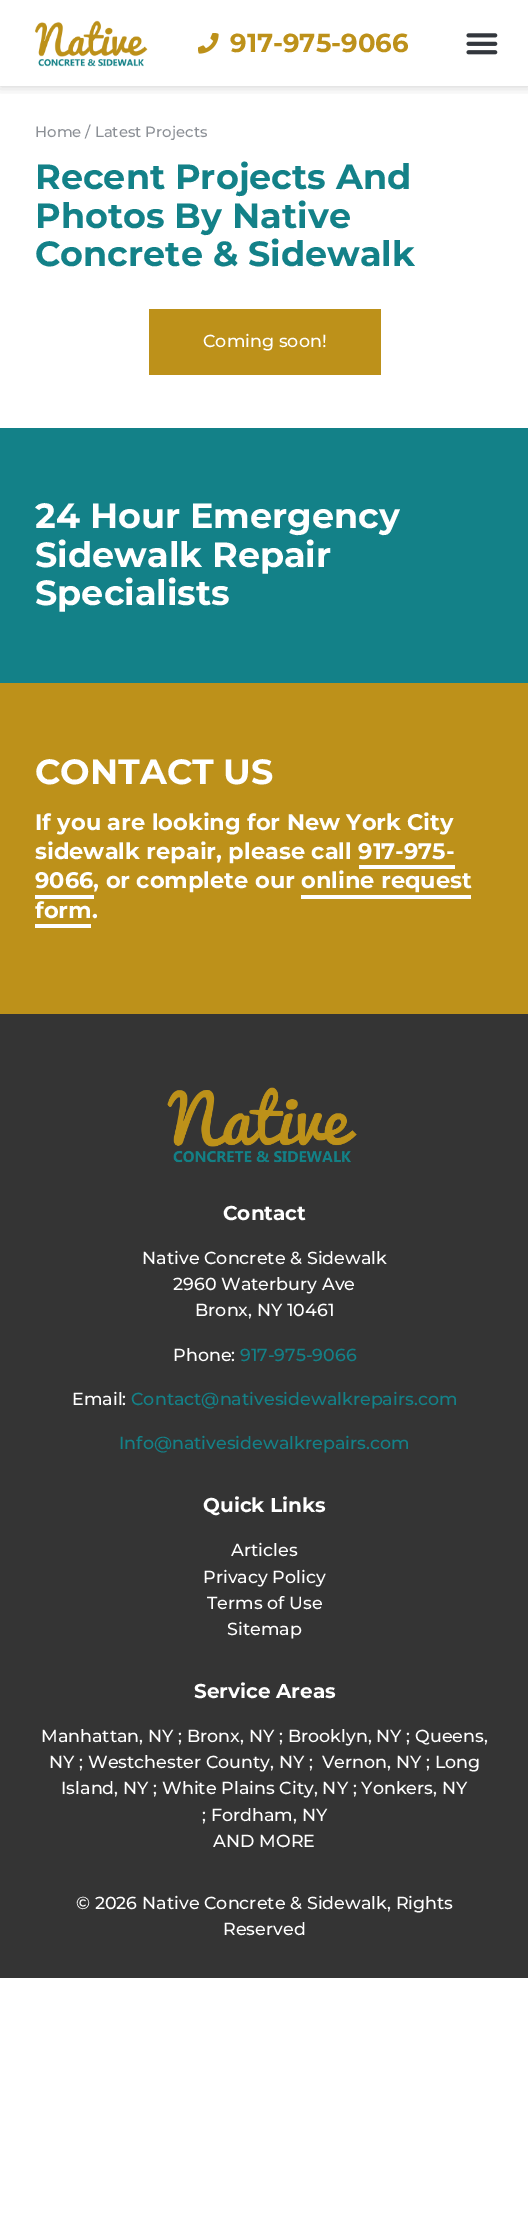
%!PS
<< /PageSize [528 2232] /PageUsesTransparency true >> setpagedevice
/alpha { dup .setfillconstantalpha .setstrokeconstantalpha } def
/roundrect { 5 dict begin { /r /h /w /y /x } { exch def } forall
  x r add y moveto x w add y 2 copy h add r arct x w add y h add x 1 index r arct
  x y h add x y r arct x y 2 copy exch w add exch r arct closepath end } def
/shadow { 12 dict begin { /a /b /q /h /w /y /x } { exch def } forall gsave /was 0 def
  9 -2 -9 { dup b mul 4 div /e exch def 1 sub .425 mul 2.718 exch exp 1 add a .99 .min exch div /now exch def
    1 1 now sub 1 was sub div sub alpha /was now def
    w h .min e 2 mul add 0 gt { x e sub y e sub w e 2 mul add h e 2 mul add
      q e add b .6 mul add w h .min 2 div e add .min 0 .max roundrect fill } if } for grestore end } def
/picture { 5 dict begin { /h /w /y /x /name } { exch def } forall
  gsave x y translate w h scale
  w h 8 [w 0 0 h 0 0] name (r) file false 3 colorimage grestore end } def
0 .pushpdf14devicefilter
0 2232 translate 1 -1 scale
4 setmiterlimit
1 setgray
0 0 528 2232 rectfill
gsave
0 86 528 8 rectclip
0 setgray
0 0 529 86 0 6 0.2 shadow
grestore
(img1.rgb) 35 20 113 47 picture
(img2.rgb) 198 33 21 21 picture
/Montserrat-Bold [26 0 0 -26 0 0] selectfont
0.741 0.569 0.102 setrgbcolor
230 52 moveto (917-975-9066) show
(img3.rgb) 466 33 32 22 picture
/Montserrat-Medium [14.9 0 0 -14.9 0 0] selectfont
0.549 0.565 0.588 setrgbcolor
35 137 moveto (Home / Latest Projects) show
/Montserrat-Bold [35 0 0 -35 0 0] selectfont
0.075 0.506 0.533 setrgbcolor
35 189 moveto (Recent Projects And) show
35 228 moveto (Photos By Native) show
35 266 moveto (Concrete & Sidewalk) show
0.741 0.569 0.102 setrgbcolor
149 309 232 66 rectfill
/Montserrat-Medium [17.5 0 0 -17.5 0 0] selectfont
1 setgray
203 347 moveto (Coming soon!) show
0.075 0.506 0.533 setrgbcolor
0 428 528 255 rectfill
/Montserrat-Bold [35 0 0 -35 0 0] selectfont
1 setgray
35 528 moveto (24 Hour Emergency) show
35 567 moveto (Sidewalk Repair) show
35 605 moveto (Specialists) show
0.741 0.569 0.102 setrgbcolor
0 683 528 331 rectfill
1 setgray
35 784 moveto (CONTACT US) show
/Montserrat-Bold [22.5 0 0 -22.5 0 0] selectfont
35 830 moveto (If you are looking for New York City) show
35 859 moveto (sidewalk repair, please call 917-975-) show
35 888 moveto (9066, or complete our online request) show
359 865 96 4 rectfill
35 895 59 4 rectfill
35 918 moveto (form.) show
301 895 170 4 rectfill
35 924 56 4 rectfill
0.204 setgray
0 1014 528 964 rectfill
(img4.rgb) 167 1087 190 76 picture
/Montserrat-Bold [20 0 0 -20 0 0] selectfont
1 setgray
223 1220 moveto (Contact) show
/Montserrat-Medium [17.5 0 0 -17.5 0 0] selectfont
142 1264 moveto (Native Concrete & Sidewalk) show
173 1290 moveto (2960 Waterbury Ave) show
195 1316 moveto (Bronx, NY 10461) show
173 1361 moveto (Phone:) show
0.075 0.506 0.533 setrgbcolor
240 1361 moveto (917-975-9066) show
1 setgray
72 1405 moveto (Email:) show
0.075 0.506 0.533 setrgbcolor
131 1405 moveto (Contact@nativesidewalkrepairs.com) show
119 1449 moveto (Info@nativesidewalkrepairs.com) show
/Montserrat-Bold [20 0 0 -20 0 0] selectfont
1 setgray
203 1512 moveto (Quick Links) show
/Montserrat-Medium [17.5 0 0 -17.5 0 0] selectfont
231 1556 moveto (Articles) show
203 1583 moveto (Privacy Policy) show
207 1609 moveto (Terms of Use) show
227 1635 moveto (Sitemap) show
/Montserrat-Bold [20 0 0 -20 0 0] selectfont
194 1698 moveto (Service Areas) show
/Montserrat-Medium [17.5 0 0 -17.5 0 0] selectfont
41 1742 moveto (Manhattan, NY ; Bronx, NY ; Brooklyn, NY ; Queens,) show
49 1768 moveto (NY ; Westchester County, NY ;) show
322 1768 moveto (Vernon, NY ; Long) show
61 1794 moveto (Island, NY ; White Plains City, NY ; Yonkers, NY) show
202 1821 moveto (; Fordham, NY) show
213 1847 moveto (AND MORE) show
76 1909 moveto (© 2026 Native Concrete & Sidewalk, Rights) show
223 1935 moveto (Reserved) show
.poppdf14devicefilter showpage
